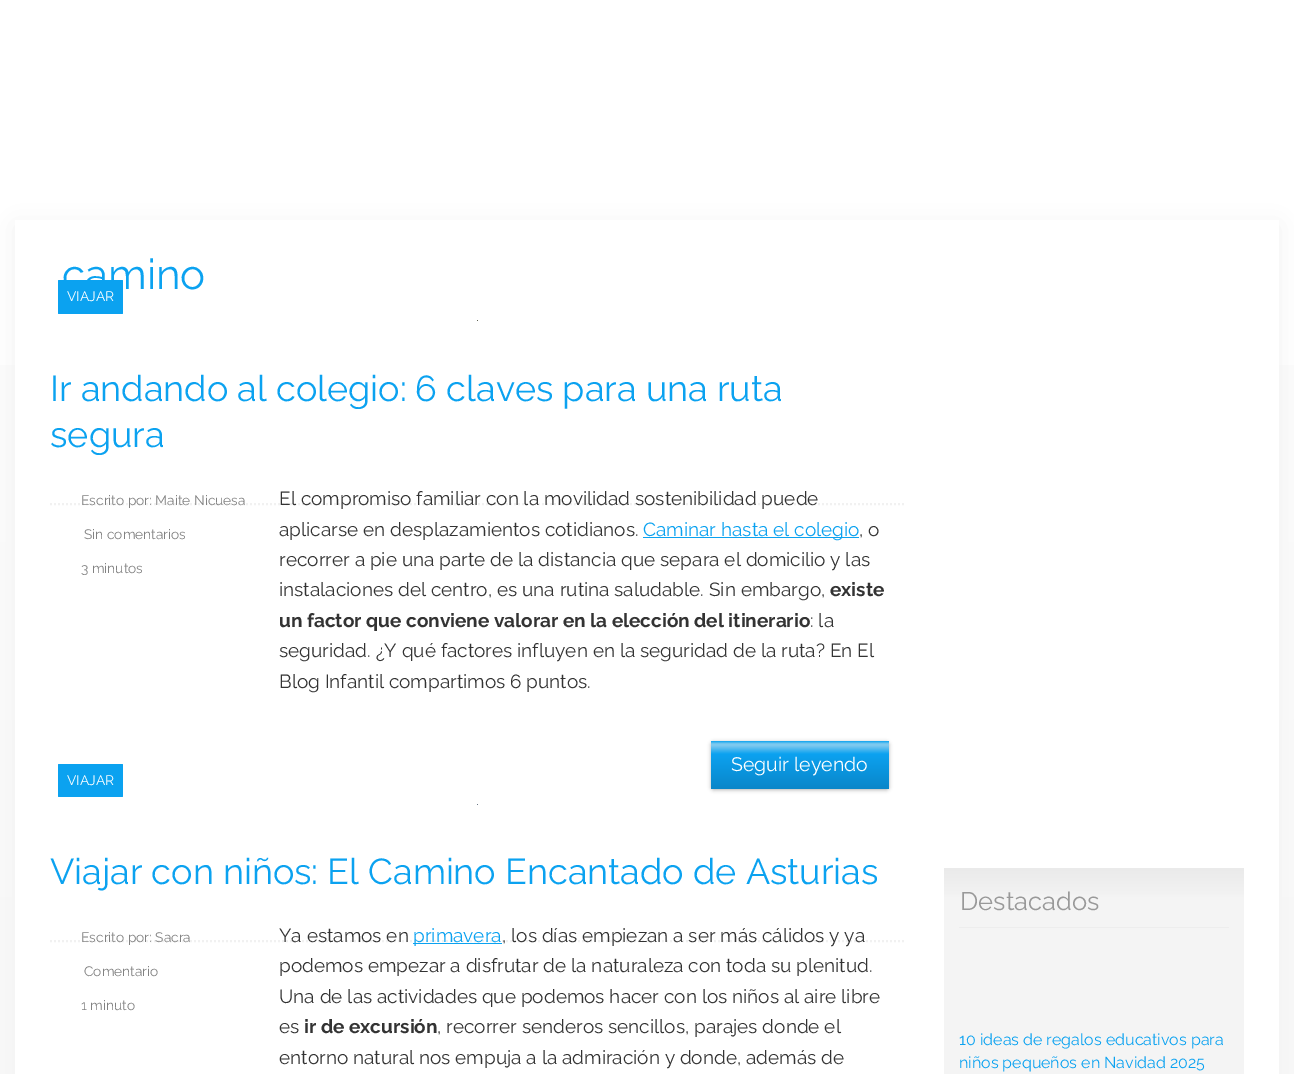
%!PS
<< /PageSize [1294 1074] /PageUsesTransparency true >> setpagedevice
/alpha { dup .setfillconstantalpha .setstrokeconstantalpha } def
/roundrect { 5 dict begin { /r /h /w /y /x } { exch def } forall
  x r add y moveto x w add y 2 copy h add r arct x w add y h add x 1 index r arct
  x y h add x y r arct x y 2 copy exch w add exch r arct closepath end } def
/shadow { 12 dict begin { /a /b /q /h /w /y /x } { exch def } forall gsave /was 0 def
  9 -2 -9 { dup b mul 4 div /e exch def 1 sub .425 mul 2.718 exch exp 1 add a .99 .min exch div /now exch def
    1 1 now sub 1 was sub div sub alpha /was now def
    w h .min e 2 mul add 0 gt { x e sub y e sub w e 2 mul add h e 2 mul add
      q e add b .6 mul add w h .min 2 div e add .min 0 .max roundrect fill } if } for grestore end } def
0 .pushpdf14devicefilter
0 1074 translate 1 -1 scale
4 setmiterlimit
1 setgray
0 0 1294 1074 rectfill
gsave newpath 0 365 moveto 1294 365 lineto 1294 1074 lineto 0 1074 lineto closepath clip newpath
<< /ShadingType 2 /ColorSpace /DeviceRGB /Coords [647 0 647 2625] /Extend [true true] /Function << /FunctionType 2 /Domain [0 1] /C0 [1 1 1] /C1 [0.929 0.929 0.929] /N 1 >> >> shfill grestore
0.945 setgray
15 225 1264 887 0 12.5 1 shadow
1 setgray
15 220 1264 854 rectfill
/Raleway-Regular [42 0 0 -42 0 0] selectfont
0.043 0.635 0.941 setrgbcolor
62 289 moveto (camino) show
0.945 setgray
2 setlinewidth
[2 2] 0 setdash
newpath 50 504 moveto 904 504 lineto stroke
0.043 0.635 0.941 setrgbcolor
58 280 65 34 1 roundrect fill
/Raleway-Regular [13.75 0 0 -13.75 0 0] selectfont
1 setgray
67 301 moveto (VIAJAR) show
0.373 0.384 0.322 setrgbcolor
477 320 1 1 rectfill
/Raleway-Regular [36 0 0 -36 0 0] selectfont
0.043 0.635 0.941 setrgbcolor
50 401 moveto (Ir andando al colegio: 6 claves para una ruta) show
50 447 moveto (segura) show
/Raleway-Regular [13.75 0 0 -13.75 0 0] selectfont
0.51 setgray
81 505 moveto (Escrito por: Maite Nicuesa) show
84 539 moveto (Sin comentarios) show
81 573 moveto (3 minutos) show
/Raleway-Regular [19 0 0 -19 0 0] selectfont
0.2 setgray
279 505 moveto (El compromiso familiar con la movilidad sostenibilidad puede) show
279 536 moveto (aplicarse en desplazamientos cotidianos.) show
0.043 0.635 0.941 setrgbcolor
643 537 216 1 rectfill
643 536 moveto (Caminar hasta el colegio) show
0.2 setgray
859 536 moveto (, o) show
279 566 moveto (recorrer a pie una parte de la distancia que separa el domicilio y las) show
279 596 moveto (instalaciones del centro, es una rutina saludable. Sin embargo,) show
/Raleway-Bold [19 0 0 -19 0 0] selectfont
830 596 moveto (existe) show
279 627 moveto (un factor que conviene valorar en la elección del itinerario) show
/Raleway-Regular [19 0 0 -19 0 0] selectfont
810 627 moveto (: la) show
279 657 moveto (seguridad. ¿Y qué factores influyen en la seguridad de la ruta? En El) show
279 688 moveto (Blog Infantil compartimos 6 puntos.) show
0 setgray
711 742 178 48 3 2 0.3 shadow
gsave 711 741 178 48 3 roundrect clip newpath
<< /ShadingType 2 /ColorSpace /DeviceRGB /Coords [800 741 800 789] /Extend [true true] /Function << /FunctionType 3 /Domain [0 1] /Functions [<< /FunctionType 2 /Domain [0 1] /C0 [0.043 0.635 0.941] /C1 [0.498 0.792 0.937] /N 1 >> << /FunctionType 2 /Domain [0 1] /C0 [0.498 0.792 0.937] /C1 [0.478 0.784 0.937] /N 1 >> << /FunctionType 2 /Domain [0 1] /C0 [0.478 0.784 0.937] /C1 [0.043 0.635 0.941] /N 1 >> << /FunctionType 2 /Domain [0 1] /C0 [0.043 0.635 0.941] /C1 [0.039 0.525 0.788] /N 1 >>] /Bounds [0.06 0.1 0.27] /Encode [0 1 0 1 0 1 0 1] >> >> shfill grestore
/Raleway-Regular [19.5 0 0 -19.5 0 0] selectfont
1 setgray
731 771 moveto (Seguir leyendo) show
0.945 setgray
newpath 50 941 moveto 904 941 lineto stroke
0.043 0.635 0.941 setrgbcolor
58 764 65 33 1 roundrect fill
/Raleway-Regular [13.75 0 0 -13.75 0 0] selectfont
1 setgray
67 785 moveto (VIAJAR) show
0.416 0.467 0.522 setrgbcolor
477 804 1 1 rectfill
/Raleway-Regular [36 0 0 -36 0 0] selectfont
0.043 0.635 0.941 setrgbcolor
50 884 moveto (Viajar con niños: El Camino Encantado de Asturias) show
/Raleway-Regular [13.75 0 0 -13.75 0 0] selectfont
0.51 setgray
81 942 moveto (Escrito por: Sacra) show
84 976 moveto (Comentario) show
81 1010 moveto (1 minuto) show
/Raleway-Regular [19 0 0 -19 0 0] selectfont
0.2 setgray
279 942 moveto (Ya estamos en) show
0.043 0.635 0.941 setrgbcolor
413 943 89 1 rectfill
413 942 moveto (primavera) show
0.2 setgray
502 942 moveto (, los días empiezan a ser más cálidos y ya) show
279 972 moveto (podemos empezar a disfrutar de la naturaleza con toda su plenitud.) show
279 1003 moveto (Una de las actividades que podemos hacer con los niños al aire libre) show
279 1033 moveto (es) show
/Raleway-Bold [19 0 0 -19 0 0] selectfont
304 1033 moveto (ir de excursión) show
/Raleway-Regular [19 0 0 -19 0 0] selectfont
437 1033 moveto (, recorrer senderos sencillos, parajes donde el) show
279 1064 moveto (entorno natural nos empuja a la admiración y donde, además de) show
gsave newpath 944 868 moveto 1244 868 lineto 1244 1074 lineto 944 1074 lineto closepath clip newpath
<< /ShadingType 2 /ColorSpace /DeviceRGB /Coords [1094 868 1094 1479] /Extend [true true] /Function << /FunctionType 3 /Domain [0 1] /Functions [<< /FunctionType 2 /Domain [0 1] /C0 [0.918 0.918 0.918] /C1 [0.957 0.957 0.957] /N 1 >> << /FunctionType 2 /Domain [0 1] /C0 [0.957 0.957 0.957] /C1 [0.957 0.957 0.957] /N 1 >>] /Bounds [0.05] /Encode [0 1 0 1] >> >> shfill grestore
/Raleway-Regular [25.5 0 0 -25.5 0 0] selectfont
0.6 setgray
960 910 moveto (Destacados) show
0.929 setgray
959 927 270 1 rectfill
/Raleway-Regular [16 0 0 -16 0 0] selectfont
0.043 0.635 0.941 setrgbcolor
959 1045 moveto (10 ideas de regalos educativos para) show
959 1068 moveto (niños pequeños en Navidad 2025) show
.poppdf14devicefilter showpage
